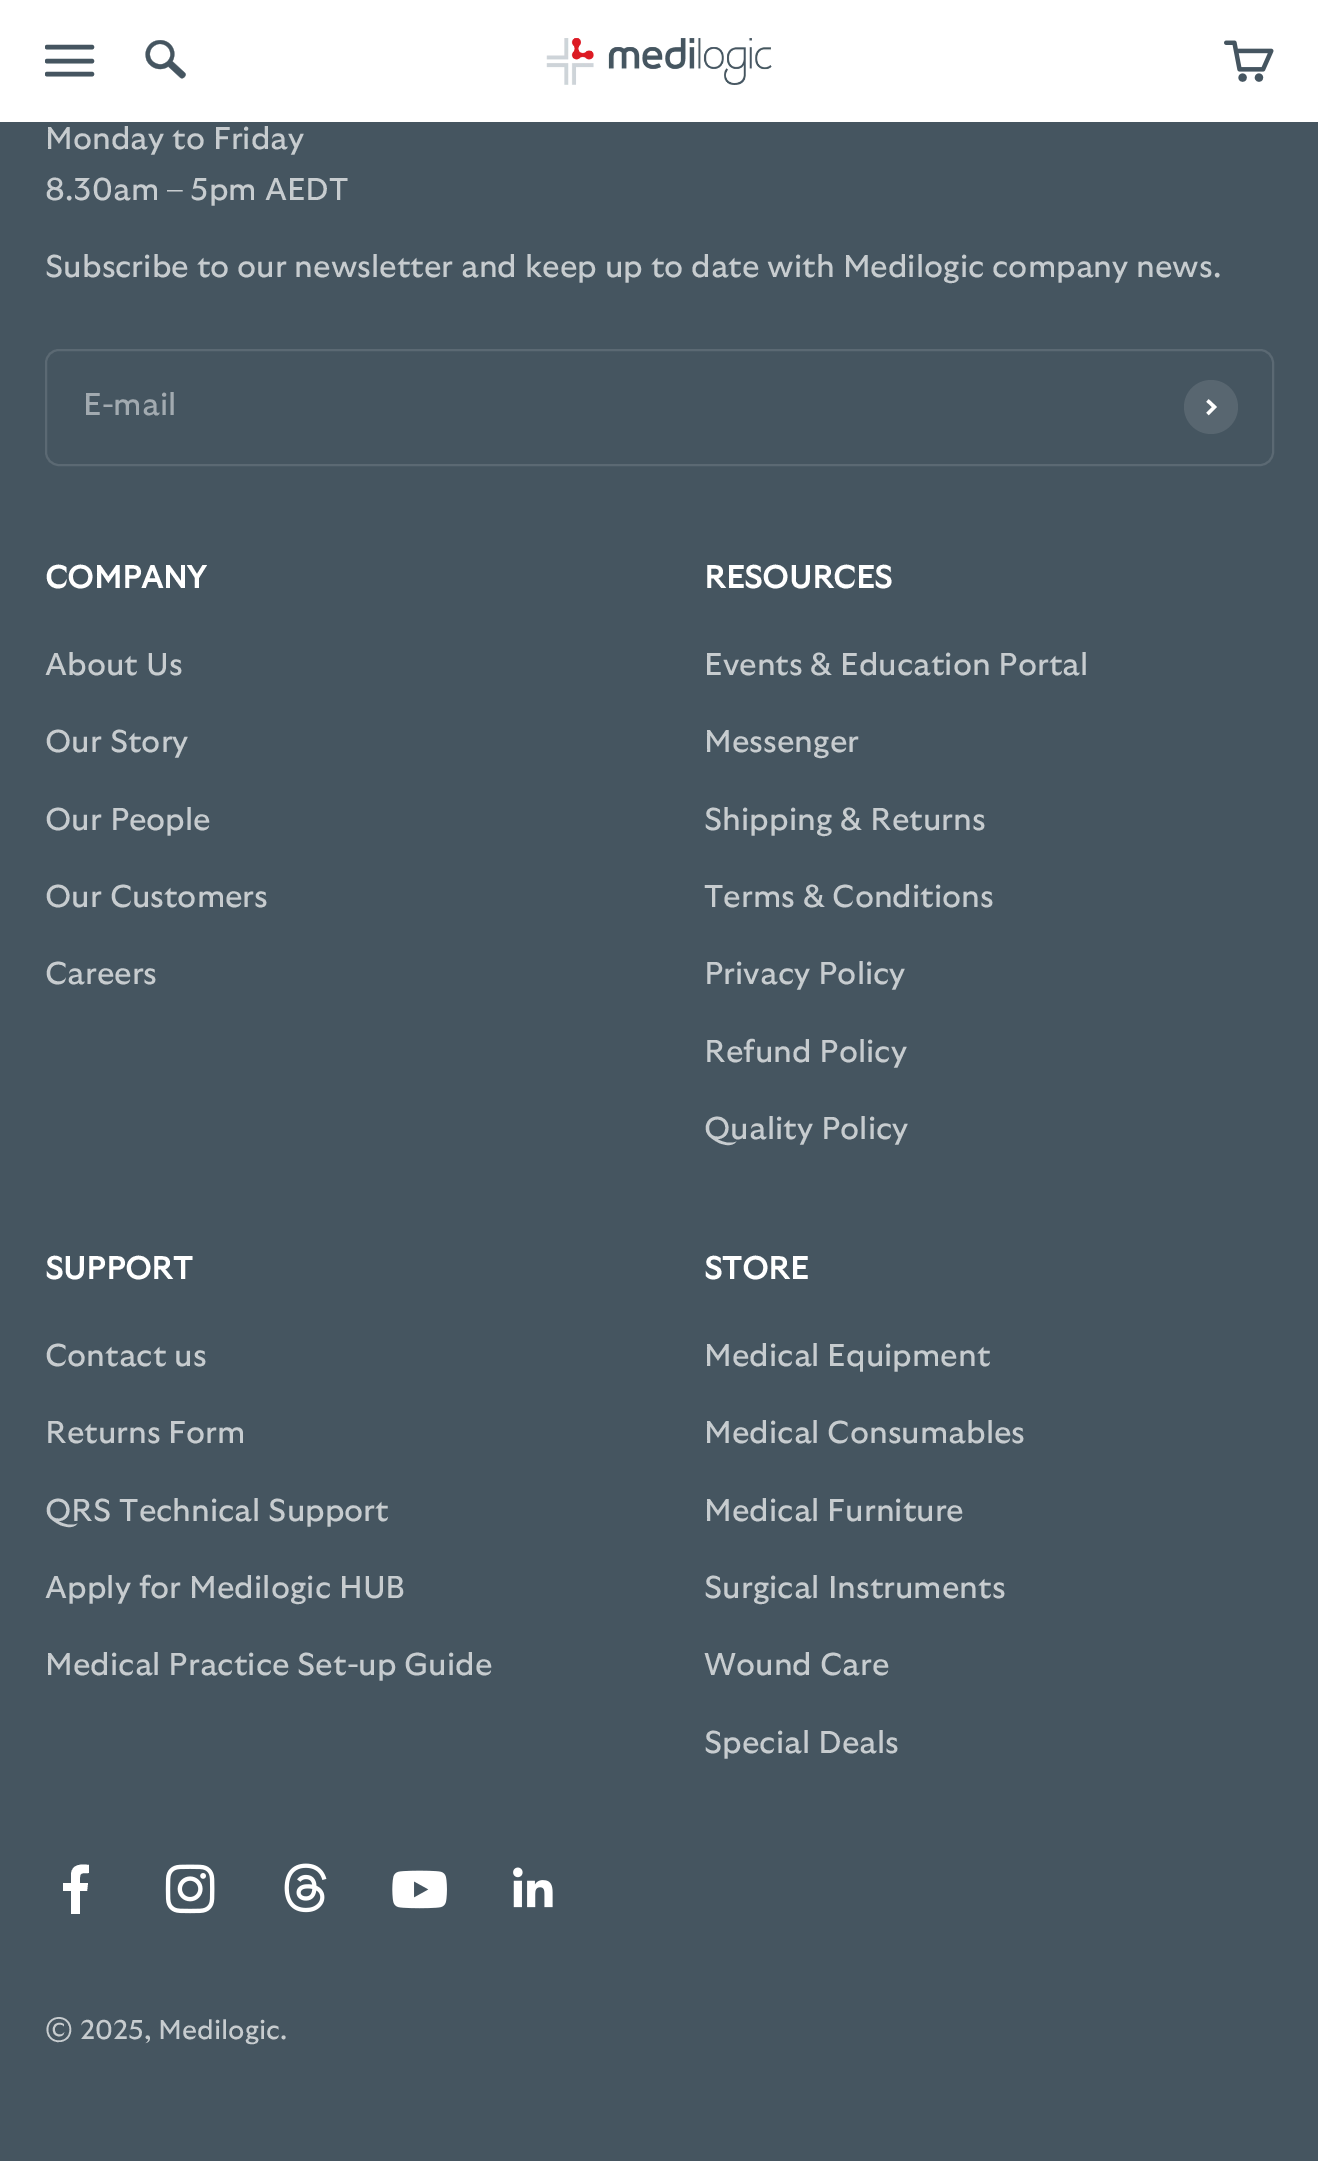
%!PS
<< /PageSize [1318 2161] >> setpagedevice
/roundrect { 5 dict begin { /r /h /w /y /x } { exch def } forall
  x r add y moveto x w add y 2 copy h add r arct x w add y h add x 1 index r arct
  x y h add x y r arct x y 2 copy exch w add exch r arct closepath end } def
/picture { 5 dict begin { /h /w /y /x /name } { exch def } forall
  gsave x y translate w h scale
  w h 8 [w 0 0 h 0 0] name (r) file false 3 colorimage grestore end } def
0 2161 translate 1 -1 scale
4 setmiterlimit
0.271 0.333 0.376 setrgbcolor
0 0 1318 2161 rectfill
1 setgray
0 0 1318 122 rectfill
gsave
45 36 50 50 rectclip
0.271 0.333 0.376 setrgbcolor
4.5 setlinewidth
1 setlinecap
newpath 47 47 moveto 92 47 lineto 47 61 moveto 92 61 lineto 47 74 moveto 92 74 lineto stroke
grestore
(img1.rgb) 145 40 41 39 picture
(img2.rgb) 546 38 226 47 picture
(img3.rgb) 1224 40 50 42 picture
/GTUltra-Regular [31.5 0 0 -31.5 0 0] selectfont
0.78 0.8 0.812 setrgbcolor
45 149 moveto (Monday to Friday) show
45 200 moveto (8.30am – 5pm AEDT) show
45 277 moveto (Subscribe to our newsletter and keep up to date with Medilogic company news.) show
0.357 0.412 0.451 setrgbcolor
2 setlinewidth
46 350 1227 115 13 roundrect stroke
0.635 0.667 0.69 setrgbcolor
83 415 moveto (E-mail) show
0.345 0.4 0.439 setrgbcolor
newpath 1211 407 27 0 360 arc closepath fill
1 setgray
3.4 setlinewidth
newpath 1207.5 414 moveto 1214.5 407 lineto 1207.5 400.5 lineto stroke
/GTUltra-Bold [31.5 0 0 -31.5 0 0] selectfont
45 588 moveto (COMPANY) show
/GTUltra-Regular [31.5 0 0 -31.5 0 0] selectfont
0.78 0.8 0.812 setrgbcolor
45 675 moveto (About Us) show
45 752 moveto (Our Story) show
45 830 moveto (Our People) show
45 907 moveto (Our Customers) show
45 984 moveto (Careers) show
/GTUltra-Bold [31.5 0 0 -31.5 0 0] selectfont
1 setgray
704 588 moveto (RESOURCES) show
/GTUltra-Regular [31.5 0 0 -31.5 0 0] selectfont
0.78 0.8 0.812 setrgbcolor
704 675 moveto (Events & Education Portal) show
704 752 moveto (Messenger) show
704 830 moveto (Shipping & Returns) show
704 907 moveto (Terms & Conditions) show
704 984 moveto (Privacy Policy) show
704 1062 moveto (Refund Policy) show
704 1139 moveto (Quality Policy) show
/GTUltra-Bold [31.5 0 0 -31.5 0 0] selectfont
1 setgray
45 1279 moveto (SUPPORT) show
/GTUltra-Regular [31.5 0 0 -31.5 0 0] selectfont
0.78 0.8 0.812 setrgbcolor
45 1366 moveto (Contact us) show
45 1443 moveto (Returns Form) show
45 1521 moveto (QRS Technical Support) show
45 1598 moveto (Apply for Medilogic HUB) show
45 1675 moveto (Medical Practice Set-up Guide) show
/GTUltra-Bold [31.5 0 0 -31.5 0 0] selectfont
1 setgray
704 1279 moveto (STORE) show
/GTUltra-Regular [31.5 0 0 -31.5 0 0] selectfont
0.78 0.8 0.812 setrgbcolor
704 1366 moveto (Medical Equipment) show
704 1443 moveto (Medical Consumables) show
704 1521 moveto (Medical Furniture) show
704 1598 moveto (Surgical Instruments) show
704 1675 moveto (Wound Care) show
704 1753 moveto (Special Deals) show
1 setgray
newpath 71 1914 moveto 71 1891 lineto 63 1891 lineto 63 1883 lineto 71 1883 lineto 71 1874 lineto 72 1864 81 1864 89 1865 curveto 89 1873 lineto 79 1873 80 1873 80 1883 curveto 88 1883 lineto 87 1891 lineto 80 1891 lineto 80 1914 lineto closepath eofill
(img4.rgb) 165 1864 50 50 picture
(img5.rgb) 284 1863 43 50 picture
(img6.rgb) 392 1870 55 39 picture
(img7.rgb) 513 1867 40 41 picture
/GTUltra-Regular [27 0 0 -27 0 0] selectfont
0.78 0.8 0.812 setrgbcolor
45 2039 moveto (© 2025, Medilogic.) show
showpage
